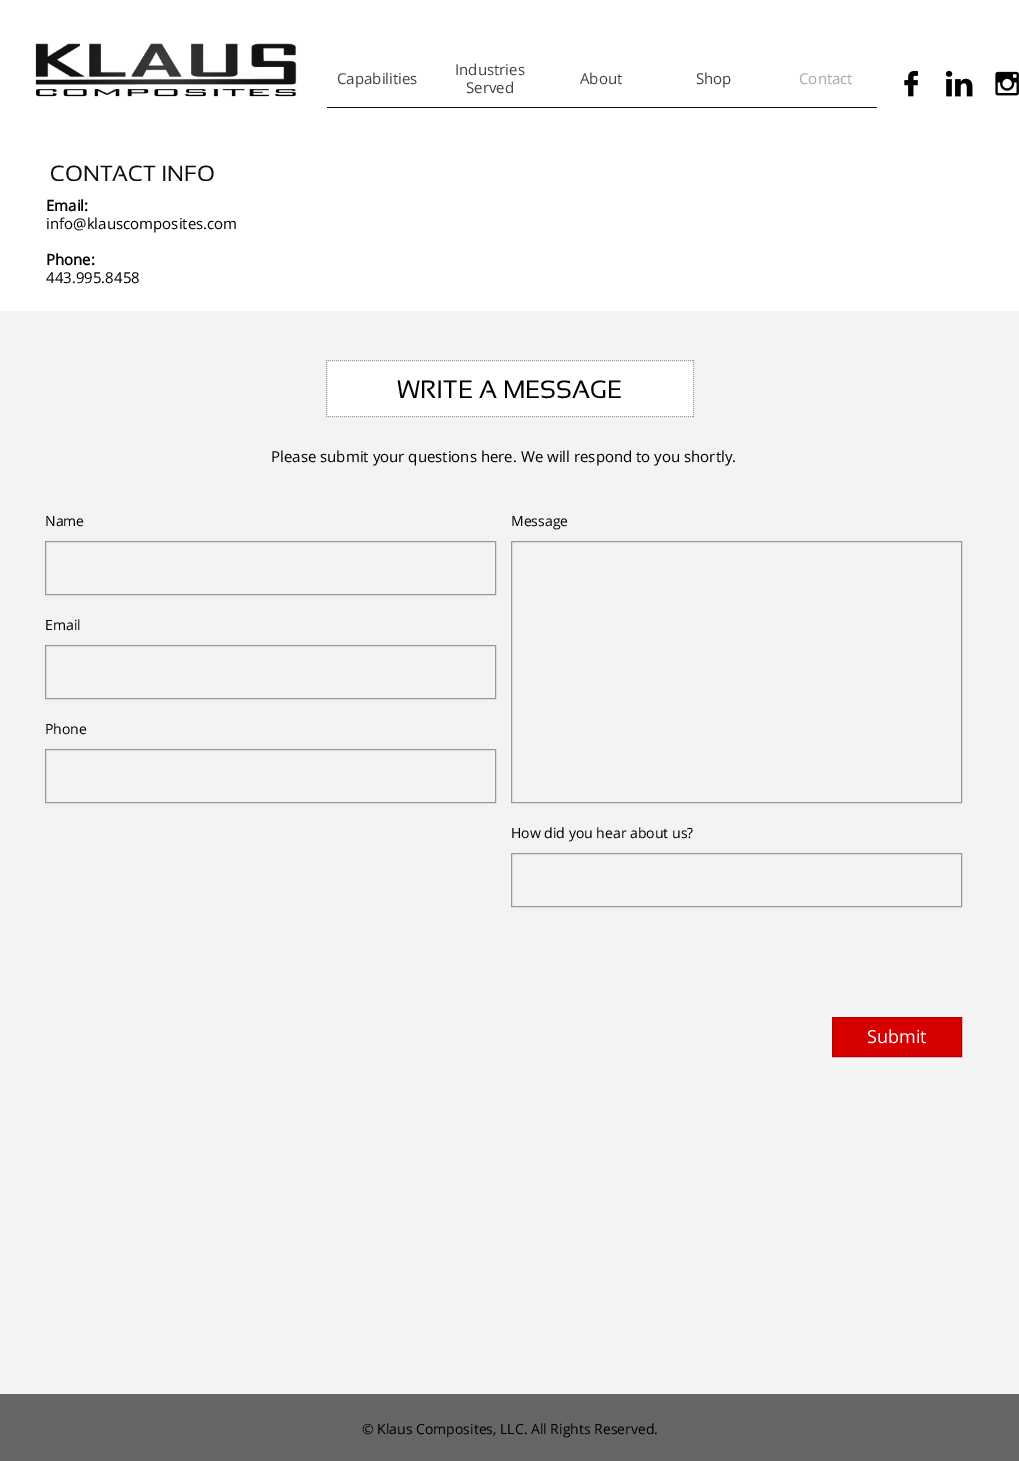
%!PS
<< /PageSize [1019 1461] >> setpagedevice
/picture { 5 dict begin { /h /w /y /x /name } { exch def } forall
  gsave x y translate w h scale
  w h 8 [w 0 0 h 0 0] name (r) file false 3 colorimage grestore end } def
0 1461 translate 1 -1 scale
4 setmiterlimit
1 setgray
0 0 1019 1461 rectfill
(img1.rgb) 35 43 262 54 picture
0.059 setgray
327 107 550 1 rectfill
/OpenSans-Regular [15 0 0 -15 0 0] selectfont
0.267 setgray
337 84 moveto (Capabilities) show
455 75 moveto (Industries) show
466 93 moveto (Served) show
580 84 moveto (About) show
696 84 moveto (Shop) show
0.659 setgray
799 84 moveto (Contact) show
(img2.rgb) 904 70 14 27 picture
(img3.rgb) 945 70 28 27 picture
(img4.rgb) 995 71 24 25 picture
/Sansation-Regular [22 0 0 -22 0 0] selectfont
0.059 setgray
50 181 moveto (CONTACT INFO) show
/OpenSans-Bold [15 0 0 -15 0 0] selectfont
0 setgray
46 211 moveto (Email:) show
/OpenSans-Regular [15 0 0 -15 0 0] selectfont
46 229 moveto (info@klauscomposites.com) show
/OpenSans-Bold [15 0 0 -15 0 0] selectfont
46 265 moveto (Phone:) show
/OpenSans-Regular [15 0 0 -15 0 0] selectfont
46 283 moveto (443.995.8458) show
0.953 setgray
0 311 1019 1083 rectfill
1 setgray
327 361 366 55 rectfill
0.6 setgray
[1 1] 0 setdash
newpath 326 360.5 moveto 694 360.5 lineto stroke
newpath 693.5 360 moveto 693.5 417 lineto stroke
newpath 326 416.5 moveto 694 416.5 lineto stroke
newpath 326.5 360 moveto 326.5 417 lineto stroke
/Sansation-Regular [25 0 0 -25 0 0] selectfont
0 setgray
397 398 moveto (WRITE A MESSAGE) show
/OpenSans-Regular [15 0 0 -15 0 0] selectfont
271 462 moveto (Please submit your questions here. We will respond to you shortly.) show
/OpenSans-Regular [14 0 0 -14 0 0] selectfont
45 526 moveto (Name) show
0.6 setgray
[] 0 setdash
45.5 541.5 450 53 rectstroke
0 setgray
45 630 moveto (Email) show
0.6 setgray
45.5 645.5 450 53 rectstroke
0 setgray
45 734 moveto (Phone) show
0.6 setgray
45.5 749.5 450 53 rectstroke
0 setgray
511 526 moveto (Message) show
0.6 setgray
511.5 541.5 450 261 rectstroke
0 setgray
511 838 moveto (How did you hear about us?) show
0.6 setgray
511.5 853.5 450 53 rectstroke
0.839 0 0 setrgbcolor
newpath 832.5 1017.5 moveto 961.5 1017.5 lineto 961.5 1056.5 lineto 832.5 1056.5 lineto closepath gsave fill grestore
0.702 0 0 setrgbcolor
stroke
/OpenSans-Regular [18 0 0 -18 0 0] selectfont
1 setgray
867 1043 moveto (Submit) show
0.4 setgray
0 1394 1019 67 rectfill
/OpenSans-Regular [14 0 0 -14 0 0] selectfont
0 setgray
362 1434 moveto (© Klaus Composites, LLC. All Rights Reserved.) show
showpage
